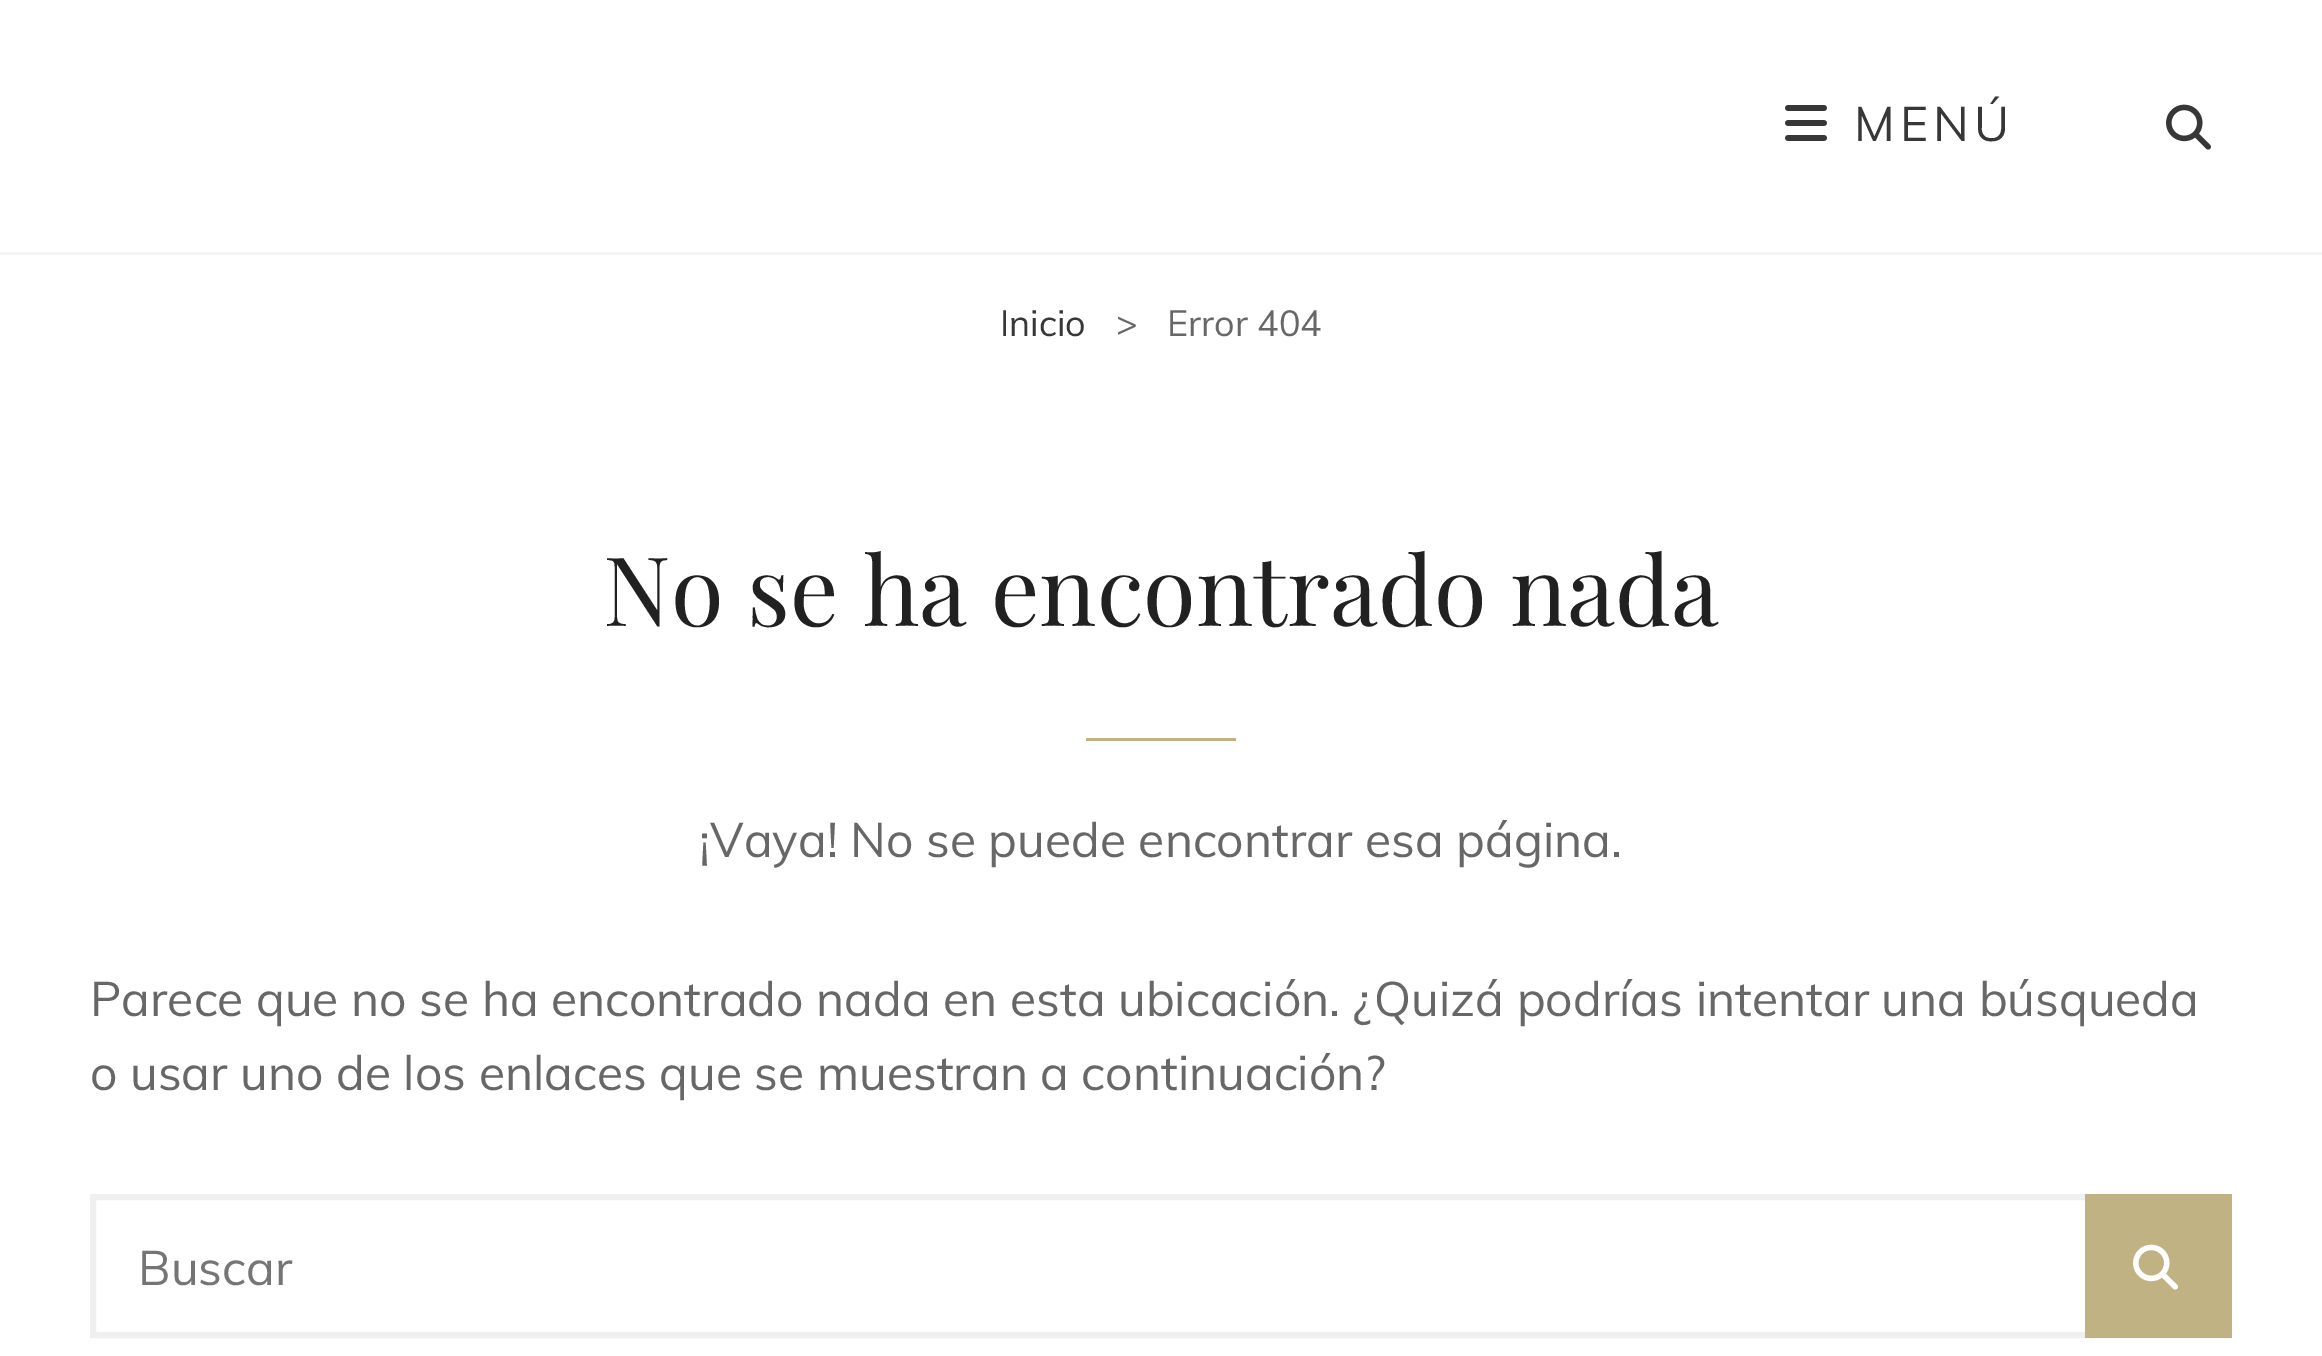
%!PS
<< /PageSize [2322 1356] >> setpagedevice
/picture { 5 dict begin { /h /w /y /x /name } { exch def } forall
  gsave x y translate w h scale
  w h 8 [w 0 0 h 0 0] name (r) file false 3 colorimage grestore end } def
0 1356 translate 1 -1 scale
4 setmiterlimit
1 setgray
0 0 2322 1356 rectfill
0.957 setgray
0 252 2322 3 rectfill
(img1.rgb) 1785 105 42 36 picture
/Muli-Regular [48 0 0 -48 0 0] selectfont
0.216 setgray
1854 141 moveto 5 0 (MENÚ) ashow
(img2.rgb) 2166 104 45 46 picture
/Muli-Regular [36 0 0 -36 0 0] selectfont
1000 336 moveto (Inicio) show
0.404 setgray
1116 336 moveto (>) show
1167 336 moveto (Error 404) show
/PlayfairDisplay-Regular [96 0 0 -96 0 0] selectfont
0.129 setgray
603 626 moveto (No se ha encontrado nada) show
0.753 0.698 0.514 setrgbcolor
1086 738 150 3 rectfill
/Muli-Regular [48 0 0 -48 0 0] selectfont
0.404 setgray
699 857 moveto (¡Vaya! No se puede encontrar esa página.) show
90 1016 moveto (Parece que no se ha encontrado nada en esta ubicación. ¿Quizá podrías intentar una búsqueda) show
90 1090 moveto (o usar uno de los enlaces que se muestran a continuación?) show
0.941 setgray
6 setlinewidth
93 1197 2136 138 rectstroke
0.459 setgray
138 1285 moveto (Buscar) show
0.753 0.698 0.514 setrgbcolor
2085 1194 147 144 rectfill
(img3.rgb) 2133 1244 45 46 picture
showpage
